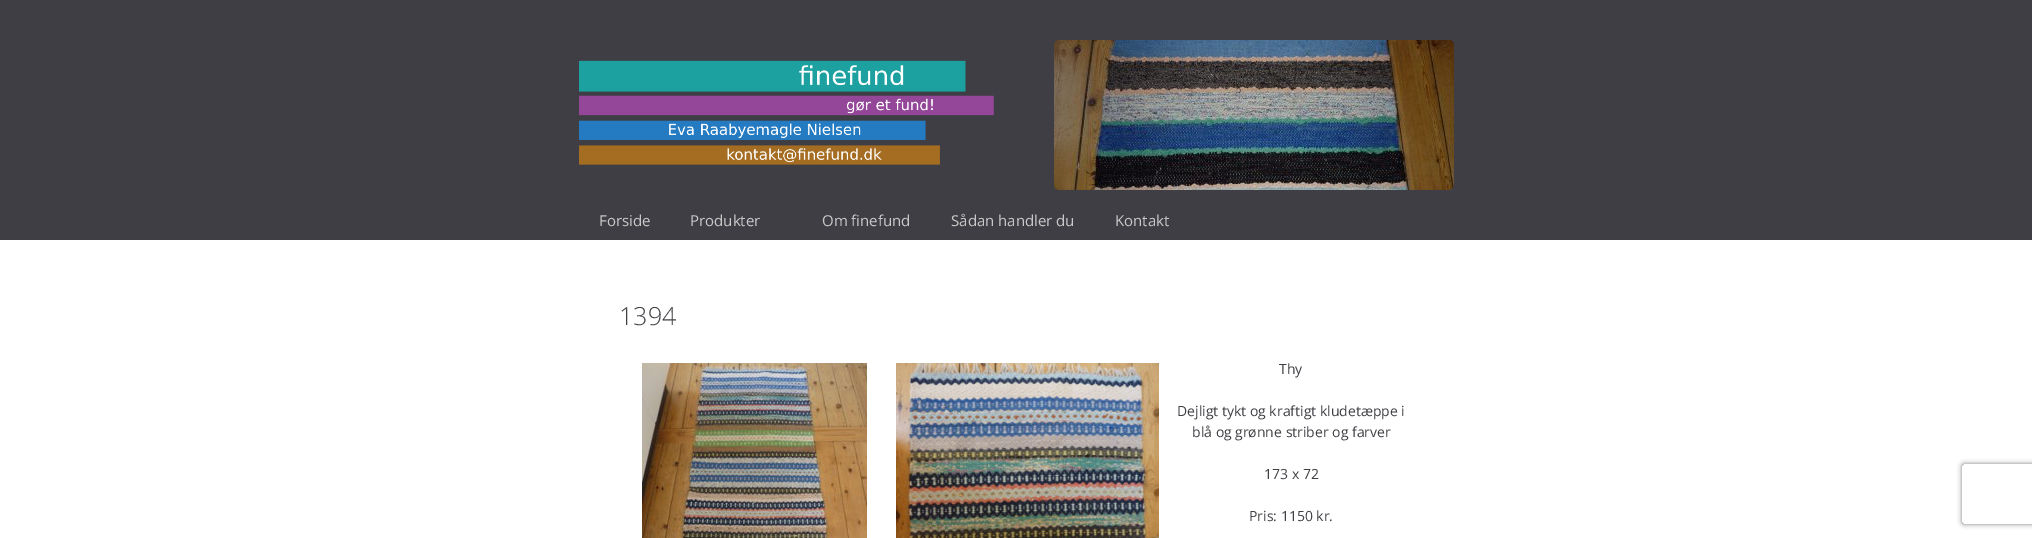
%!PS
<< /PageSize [2032 538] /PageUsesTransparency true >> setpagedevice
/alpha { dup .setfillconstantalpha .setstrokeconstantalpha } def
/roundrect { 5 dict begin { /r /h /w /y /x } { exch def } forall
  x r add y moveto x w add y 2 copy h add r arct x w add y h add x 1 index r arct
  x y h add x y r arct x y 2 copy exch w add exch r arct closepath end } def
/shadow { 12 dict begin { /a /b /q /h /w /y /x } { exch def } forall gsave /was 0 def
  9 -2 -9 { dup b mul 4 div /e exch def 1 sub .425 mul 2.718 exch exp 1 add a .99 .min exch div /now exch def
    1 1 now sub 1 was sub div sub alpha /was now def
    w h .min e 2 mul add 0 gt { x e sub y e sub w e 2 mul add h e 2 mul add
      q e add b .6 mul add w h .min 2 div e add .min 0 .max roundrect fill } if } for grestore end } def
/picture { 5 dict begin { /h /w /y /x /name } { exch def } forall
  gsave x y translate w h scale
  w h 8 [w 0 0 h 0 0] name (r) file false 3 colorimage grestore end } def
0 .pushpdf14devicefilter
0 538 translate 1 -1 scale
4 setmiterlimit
1 setgray
0 0 2032 538 rectfill
0.247 0.243 0.267 setrgbcolor
0 0 2032 240 rectfill
(img1.rgb) 579 60 415 105 picture
(img2.rgb) 1054 40 400 150 picture
/OpenSans-Regular [15 0 0 -15 0 0] selectfont
0.788 setgray
599 226 moveto (Forside) show
690 226 moveto (Produkter) show
822 226 moveto (Om finefund) show
951 226 moveto (Sådan handler du) show
1115 226 moveto (Kontakt) show
/OpenSans-Light [25 0 0 -25 0 0] selectfont
0.247 0.243 0.267 setrgbcolor
619 325 moveto (1394) show
(img3.rgb) 642 363 225 175 picture
(img4.rgb) 896 363 263 175 picture
/OpenSans-Regular [14 0 0 -14 0 0] selectfont
1279 374 moveto (Thy) show
1177 416 moveto (Dejligt tykt og kraftigt kludetæppe i) show
1192 437 moveto (blå og grønne striber og farver) show
1264 479 moveto (173 x 72) show
1249 521 moveto (Pris: 1150 kr.) show
gsave
newpath 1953 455 moveto 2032 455 lineto 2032 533 lineto 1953 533 lineto closepath 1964 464 moveto 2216 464 lineto 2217 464 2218 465 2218 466 curveto 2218 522 lineto 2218 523 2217 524 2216 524 curveto 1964 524 lineto 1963 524 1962 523 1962 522 curveto 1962 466 lineto 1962 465 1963 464 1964 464 curveto closepath eoclip newpath
0.502 setgray
1962 464 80 60 2 2.5 1 shadow
grestore
.poppdf14devicefilter showpage
